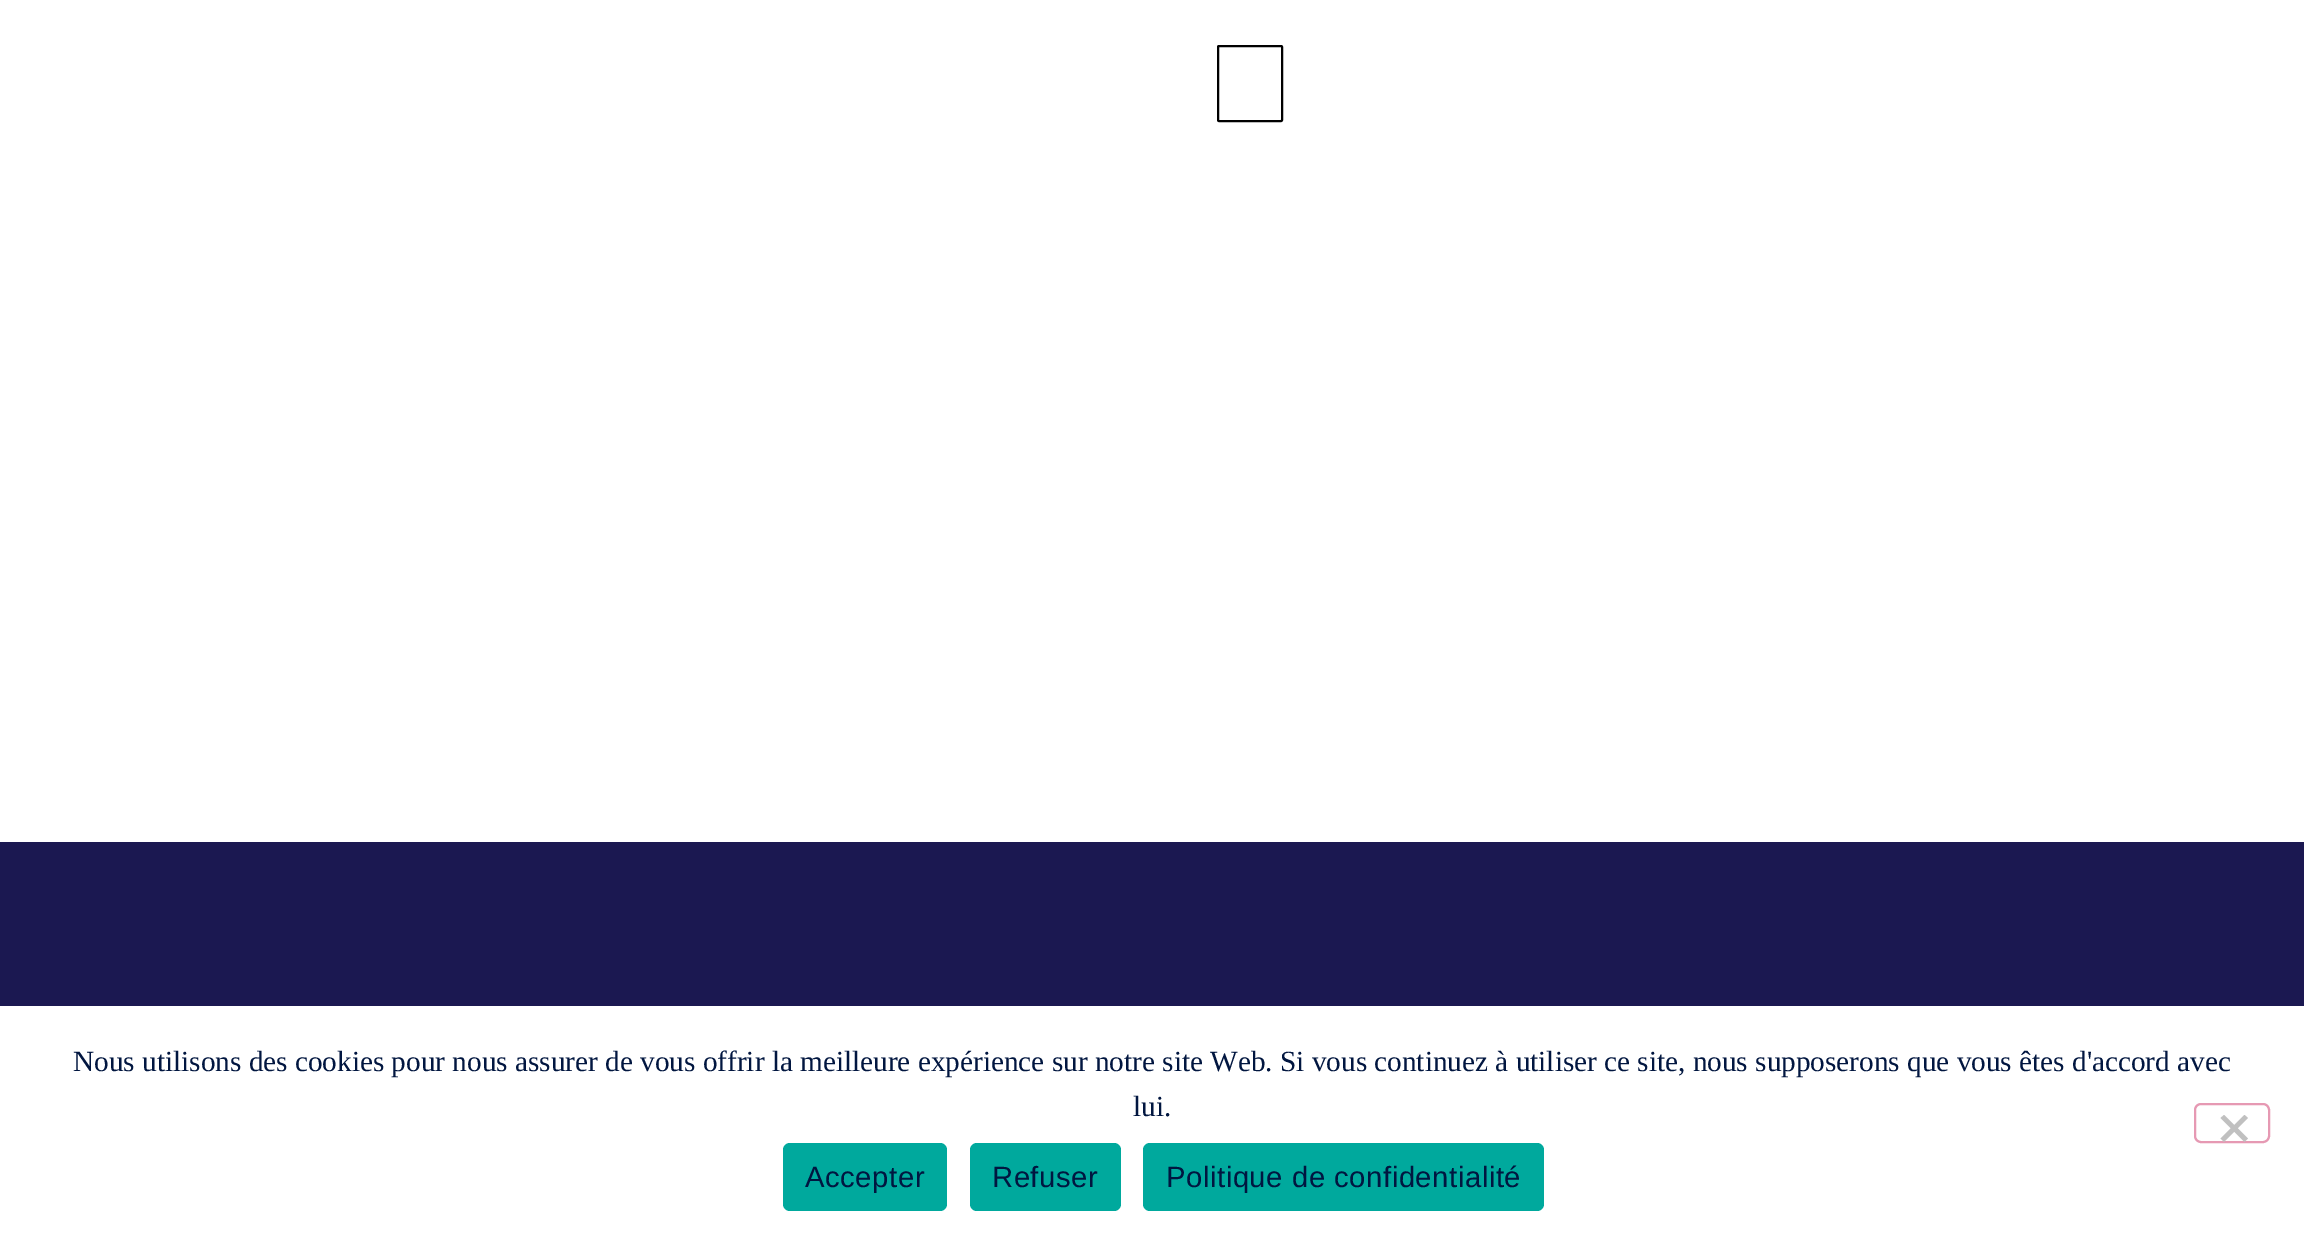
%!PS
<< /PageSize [2304 1244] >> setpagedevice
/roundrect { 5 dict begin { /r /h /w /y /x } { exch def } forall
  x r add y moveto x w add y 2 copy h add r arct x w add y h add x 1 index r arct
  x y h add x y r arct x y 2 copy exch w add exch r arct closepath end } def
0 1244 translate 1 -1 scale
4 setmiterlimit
1 setgray
0 0 2304 1244 rectfill
0 setgray
2 setlinewidth
1218 46 64 75 1 roundrect stroke
0.106 0.094 0.318 setrgbcolor
0 842 2304 164 rectfill
/LiberationSerif-Regular [29.25 0 0 -29.25 0 0] selectfont
0.004 0.086 0.251 setrgbcolor
73 1071 moveto (Nous utilisons des cookies pour nous assurer de vous offrir la meilleure expérience sur notre site Web. Si vous continuez à utiliser ce site, nous supposerons que vous êtes d'accord avec) show
1133 1116 moveto (lui.) show
0.902 0.6 0.702 setrgbcolor
2195 1104 74 38 6 roundrect stroke
0.753 setgray
newpath 2244.5 1115 moveto 2248 1118 lineto 2224 1142 lineto 2220.5 1138.5 lineto closepath fill
newpath 2220.5 1118 moveto 2224 1115 lineto 2248 1138.5 lineto 2244.5 1142 lineto closepath fill
0 0.663 0.616 setrgbcolor
783 1143 164 68 7 roundrect fill
/LiberationSans-Regular [29.25 0 0 -29.25 0 0] selectfont
0.004 0.086 0.251 setrgbcolor
805 1187 moveto 0.55 0 (Accepter) ashow
0 0.663 0.616 setrgbcolor
970 1143 151 68 7 roundrect fill
0.004 0.086 0.251 setrgbcolor
992 1187 moveto 0.55 0 (Refuser) ashow
0 0.663 0.616 setrgbcolor
1143 1143 401 68 7 roundrect fill
0.004 0.086 0.251 setrgbcolor
1166 1187 moveto 0.55 0 (Politique de confidentialité) ashow
showpage
